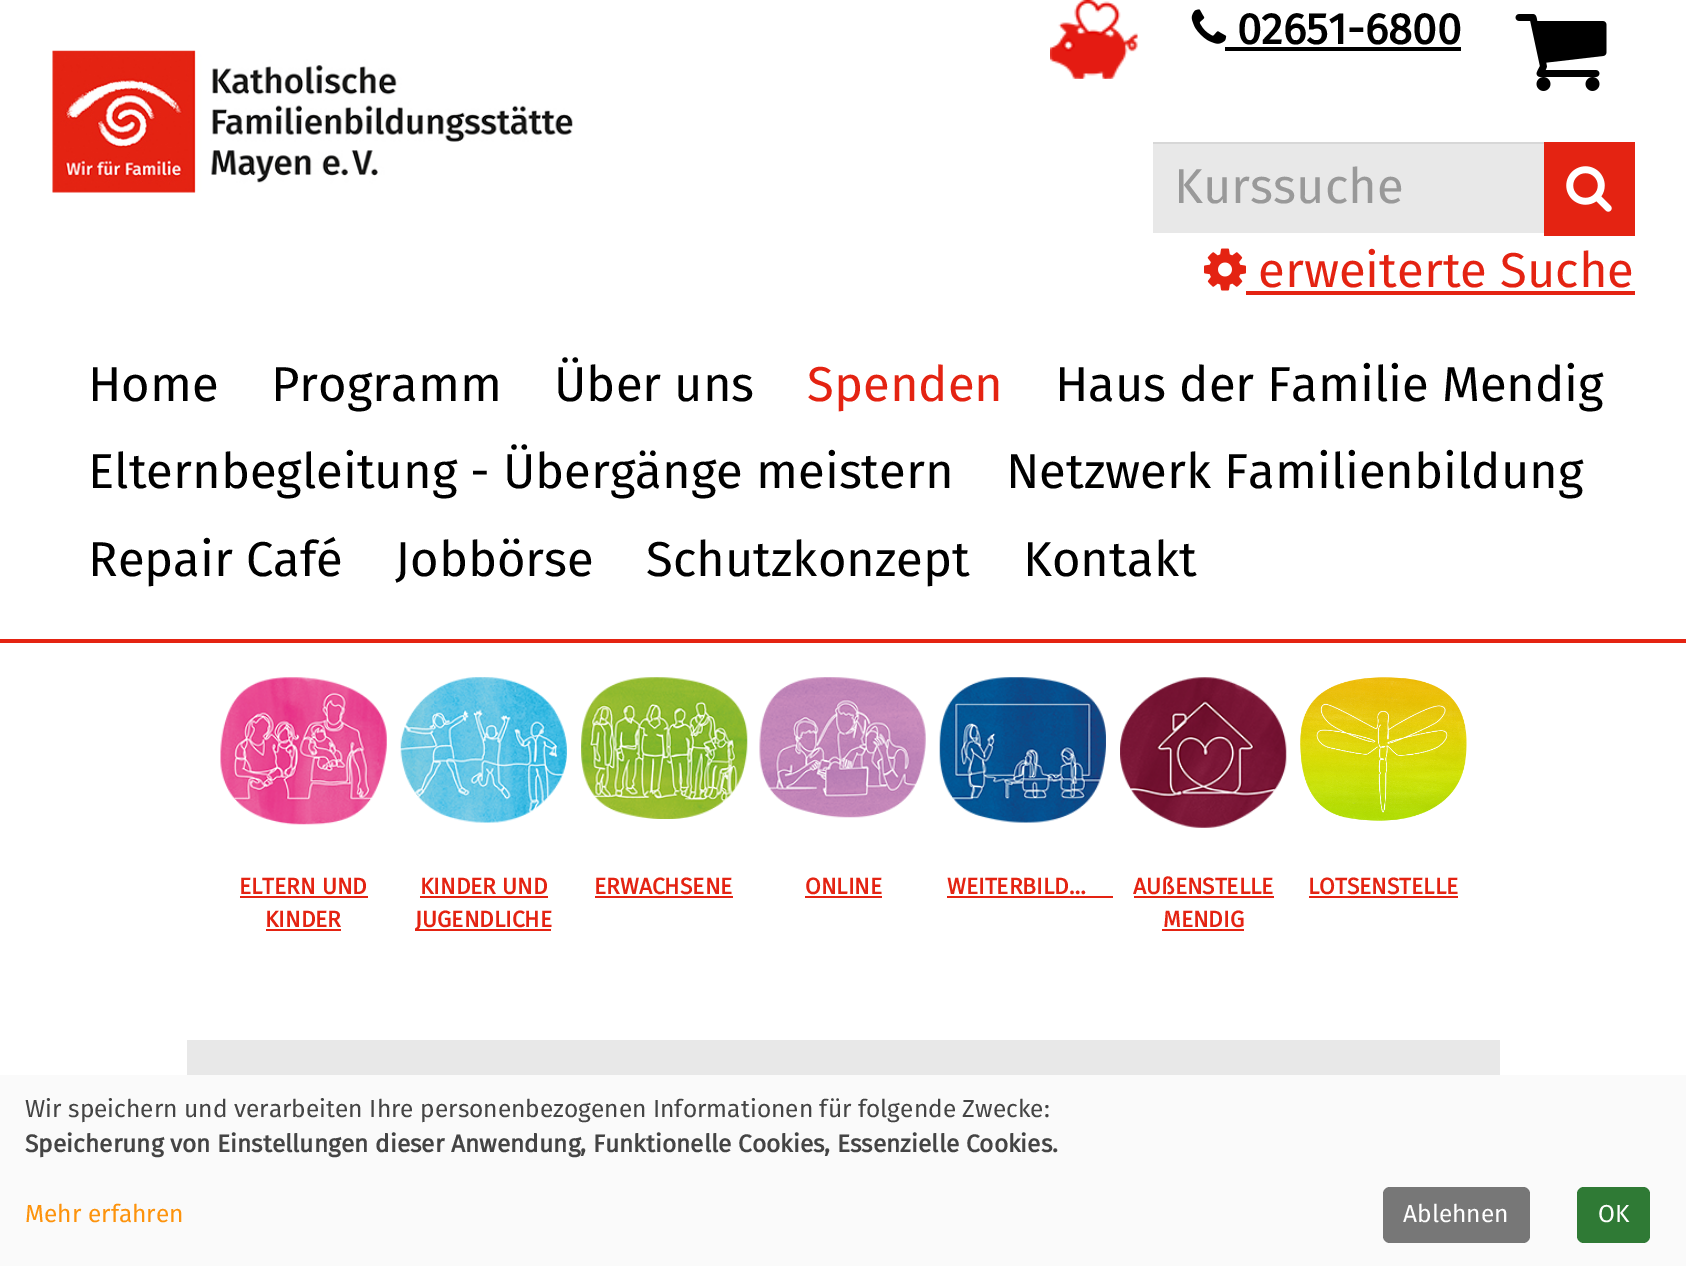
%!PS
<< /PageSize [1686 1266] >> setpagedevice
/roundrect { 5 dict begin { /r /h /w /y /x } { exch def } forall
  x r add y moveto x w add y 2 copy h add r arct x w add y h add x 1 index r arct
  x y h add x y r arct x y 2 copy exch w add exch r arct closepath end } def
/picture { 5 dict begin { /h /w /y /x /name } { exch def } forall
  gsave x y translate w h scale
  w h 8 [w 0 0 h 0 0] name (r) file false 3 colorimage grestore end } def
0 1266 translate 1 -1 scale
4 setmiterlimit
1 setgray
0 0 1686 1266 rectfill
0.894 0.137 0.071 setrgbcolor
0 639 1686 4 rectfill
(img1.rgb) 52 50 521 143 picture
(img2.rgb) 1050 0 88 79 picture
(img3.rgb) 1191 9 36 35 picture
/FiraSans-Bold [43.75 0 0 -43.75 0 0] selectfont
0 setgray
1237 44 moveto (02651-6800) show
1225 47 236 4 rectfill
(img4.rgb) 1515 14 92 77 picture
0.91 setgray
1153 144 391 89 rectfill
0.843 setgray
1153 142 392 2 rectfill
/FiraSans-Regular [49 0 0 -49 0 0] selectfont
0.6 setgray
1174 203 moveto (Kurssuche) show
0.894 0.137 0.071 setrgbcolor
1544 142 91 94 rectfill
(img5.rgb) 1566 166 46 46 picture
(img6.rgb) 1204 248 42 43 picture
1258 287 moveto (erweiterte Suche) show
1246 291 389 4 rectfill
0 setgray
88 401 moveto (Home) show
271 401 moveto (Programm) show
554 401 moveto (Über uns) show
0.894 0.137 0.071 setrgbcolor
807 401 moveto (Spenden) show
0 setgray
1055 401 moveto (Haus der Familie Mendig) show
88 488 moveto (Elternbegleitung - Übergänge meistern) show
1006 488 moveto (Netzwerk Familienbildung) show
88 576 moveto (Repair Café) show
395 576 moveto (Jobbörse) show
646 576 moveto (Schutzkonzept) show
1023 576 moveto (Kontakt) show
(img7.rgb) 220 677 167 148 picture
/FiraSans-Bold [22.75 0 0 -22.75 0 0] selectfont
0.894 0.137 0.071 setrgbcolor
239 894 moveto (ELTERN UND) show
240 896 128 2 rectfill
265 927 moveto (KINDER) show
266 929 75 2 rectfill
(img8.rgb) 400 677 167 146 picture
420 894 moveto (KINDER UND) show
420 896 128 2 rectfill
415 929 136 2 rectfill
415 927 moveto (JUGENDLICHE) show
(img9.rgb) 581 677 167 142 picture
594 894 moveto (ERWACHSENE) show
595 896 138 2 rectfill
(img10.rgb) 759 677 167 141 picture
805 894 moveto (ONLINE) show
805 896 77 2 rectfill
(img11.rgb) 939 677 167 146 picture
947 894 moveto (WEITERBILD…) show
947 896 166 2 rectfill
(img12.rgb) 1120 677 167 151 picture
1133 894 moveto (AUßENSTELLE) show
1134 896 140 2 rectfill
1163 927 moveto (MENDIG) show
1162 929 82 2 rectfill
(img13.rgb) 1300 677 167 144 picture
1308 894 moveto (LOTSENSTELLE) show
1309 896 149 2 rectfill
0.91 setgray
187 1040 1313 35 rectfill
0.98 setgray
0 1075 1686 191 rectfill
/FiraSans-Regular [24.5 0 0 -24.5 0 0] selectfont
0.267 setgray
25 1117 moveto (Wir speichern und verarbeiten Ihre personenbezogenen Informationen für folgende Zwecke:) show
/FiraSans-Bold [24.5 0 0 -24.5 0 0] selectfont
25 1152 moveto (Speicherung von Einstellungen dieser Anwendung, Funktionelle Cookies, Essenzielle Cookies.) show
/FiraSans-Regular [24.5 0 0 -24.5 0 0] selectfont
0.992 0.576 0.047 setrgbcolor
25 1222 moveto (Mehr erfahren) show
0.467 setgray
1383 1187 147 56 7 roundrect fill
1 setgray
1403 1222 moveto (Ablehnen) show
0.184 0.478 0.208 setrgbcolor
1577 1187 73 56 7 roundrect fill
1 setgray
1598 1222 moveto (OK) show
showpage
